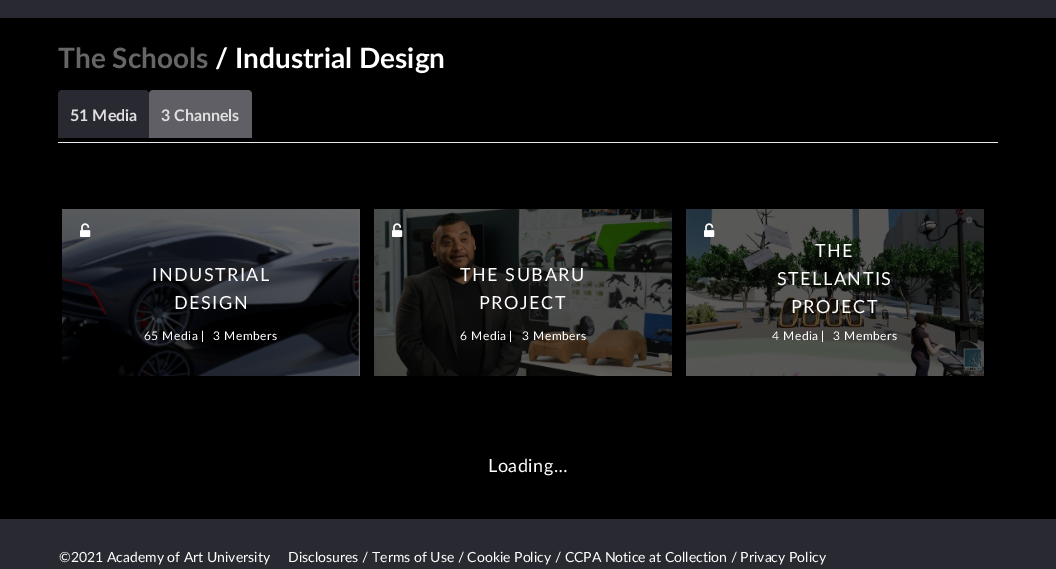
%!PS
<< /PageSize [1056 569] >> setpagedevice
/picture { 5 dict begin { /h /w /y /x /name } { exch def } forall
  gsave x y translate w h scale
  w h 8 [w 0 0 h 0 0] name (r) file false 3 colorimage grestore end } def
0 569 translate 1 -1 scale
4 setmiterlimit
0 setgray
0 0 1056 569 rectfill
0.161 0.161 0.192 setrgbcolor
0 0 1056 18 rectfill
/Lato-Bold [28 0 0 -28 0 0] selectfont
0.4 setgray
58 68 moveto (The Schools) show
1 setgray
215 68 moveto (/ Industrial Design) show
0.922 setgray
58 142 940 1 rectfill
0.161 0.161 0.192 setrgbcolor
newpath 62 90 moveto 145 90 lineto 147 90 149 92 149 94 curveto 149 138 lineto 58 138 lineto 58 94 lineto 58 92 60 90 62 90 curveto closepath fill
/Lato-Bold [16 0 0 -16 0 0] selectfont
0.875 0.875 0.878 setrgbcolor
70 121 moveto (51 Media) show
0.373 0.373 0.396 setrgbcolor
newpath 153 90 moveto 248 90 lineto 250 90 252 92 252 94 curveto 252 138 lineto 149 138 lineto 149 94 lineto 149 92 151 90 153 90 curveto closepath fill
0.875 0.875 0.878 setrgbcolor
161 121 moveto (3 Channels) show
(img1.rgb) 62 209 298 167 picture
(img2.rgb) 80 223 11 14 picture
/Lato-Regular [18 0 0 -18 0 0] selectfont
1 setgray
152 281 moveto 1.5 0 (INDUSTRIAL) ashow
174 309 moveto 1.5 0 (DESIGN) ashow
/Lato-Regular [12 0 0 -12 0 0] selectfont
144 340 moveto 0.5 0 (65 Media) ashow
201 340 moveto 0.5 0 (|) ashow
213 340 moveto 0.5 0 (3 Members) ashow
(img3.rgb) 374 209 298 167 picture
(img4.rgb) 392 223 11 14 picture
/Lato-Regular [18 0 0 -18 0 0] selectfont
460 281 moveto 1.5 0 (THE SUBARU) ashow
479 309 moveto 1.5 0 (PROJECT) ashow
/Lato-Regular [12 0 0 -12 0 0] selectfont
460 340 moveto 0.5 0 (6 Media) ashow
509 340 moveto 0.5 0 (|) ashow
522 340 moveto 0.5 0 (3 Members) ashow
(img5.rgb) 686 209 298 167 picture
(img6.rgb) 704 223 11 14 picture
/Lato-Regular [18 0 0 -18 0 0] selectfont
815 257 moveto 1.5 0 (THE) ashow
777 285 moveto 1.5 0 (STELLANTIS) ashow
791 313 moveto 1.5 0 (PROJECT) ashow
/Lato-Regular [12 0 0 -12 0 0] selectfont
772 340 moveto 0.5 0 (4 Media) ashow
821 340 moveto 0.5 0 (|) ashow
833 340 moveto 0.5 0 (3 Members) ashow
/Lato-Regular [18 0 0 -18 0 0] selectfont
488 472 moveto 0.5 0 (Loading…) ashow
0.161 0.161 0.192 setrgbcolor
0 519 1056 50 rectfill
/Lato-Regular [14 0 0 -14 0 0] selectfont
1 setgray
59 562 moveto (©2021 Academy of Art University) show
288 562 moveto (Disclosures / Terms of Use / Cookie Policy / CCPA Notice at Collection / Privacy Policy) show
showpage
